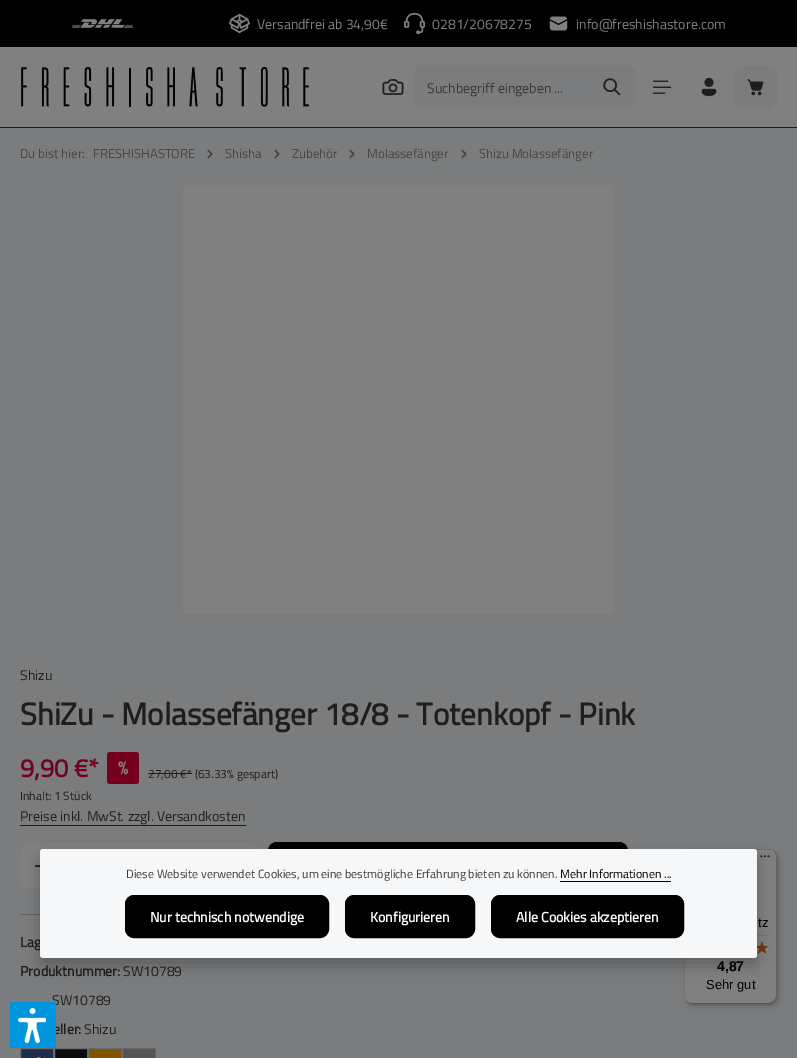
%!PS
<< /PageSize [797 1058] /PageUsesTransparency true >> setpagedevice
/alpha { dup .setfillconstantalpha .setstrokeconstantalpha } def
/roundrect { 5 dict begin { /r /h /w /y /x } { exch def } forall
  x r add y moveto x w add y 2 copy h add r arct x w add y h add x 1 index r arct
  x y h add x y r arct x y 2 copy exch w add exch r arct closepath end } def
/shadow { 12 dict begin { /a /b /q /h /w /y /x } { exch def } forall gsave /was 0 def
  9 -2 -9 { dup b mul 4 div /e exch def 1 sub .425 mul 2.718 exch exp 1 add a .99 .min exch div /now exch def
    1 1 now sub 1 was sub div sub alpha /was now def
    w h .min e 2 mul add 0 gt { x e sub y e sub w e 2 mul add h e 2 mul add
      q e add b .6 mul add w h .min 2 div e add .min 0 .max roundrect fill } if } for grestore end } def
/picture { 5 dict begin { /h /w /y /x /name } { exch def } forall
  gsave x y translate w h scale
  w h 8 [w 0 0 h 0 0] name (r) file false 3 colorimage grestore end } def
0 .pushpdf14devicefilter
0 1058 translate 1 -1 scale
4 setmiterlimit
0.482 0.486 0.49 setrgbcolor
0 0 797 1058 rectfill
0 setgray
0 0 797 47 rectfill
(img1.rgb) 72 19 61 9 picture
(img2.rgb) 229 13 21 21 picture
/TitilliumWeb-Regular [14 0 0 -14 0 0] selectfont
0.502 setgray
257 29 moveto (Versandfrei ab 34,90€) show
(img3.rgb) 404 13 21 21 picture
432 29 moveto (0281/20678275) show
(img4.rgb) 549 16 19 15 picture
576 29 moveto (info@freshishastore.com) show
0 47 797 80 rectfill
(img5.rgb) 21 67 288 40 picture
(img6.rgb) 382 79 22 16 picture
0.482 0.486 0.49 setrgbcolor
newpath 423 66 moveto 590 66 lineto 590 108 lineto 423 108 lineto 418.5 108 415 104.5 415 100 curveto 415 74 lineto 415 69.5 418.5 66 423 66 curveto closepath fill
newpath 423 65 moveto 590 65 lineto 590 109 lineto 423 109 lineto 418 109 414 105 414 100 curveto 414 74 lineto 414 69 418 65 423 65 curveto closepath 423 66 moveto 590 66 lineto 590 108 lineto 423 108 lineto 419 108 415 104 415 100 curveto 415 74 lineto 415 70 419 66 423 66 curveto closepath eofill
0.212 setgray
427 93 moveto (Suchbegriff eingeben ...) show
0.482 0.486 0.49 setrgbcolor
newpath 589 65 moveto 627 65 lineto 632 65 636 69 636 74 curveto 636 100 lineto 636 105 632 109 627 109 curveto 589 109 lineto closepath fill
(img7.rgb) 603 78 18 18 picture
(img8.rgb) 652 80 20 14 picture
(img9.rgb) 701 77 16 20 picture
734 66 43 43 9 roundrect fill
(img10.rgb) 747 79 17 17 picture
0.114 setgray
0 127 797 1 rectfill
/TitilliumWeb-Regular [13 0 0 -13 0 0] selectfont
0.271 setgray
20 158 moveto (Du bist hier:) show
93 158 moveto (FRESHISHASTORE) show
(img11.rgb) 207 149 6 10 picture
225 158 moveto (Shisha) show
(img11.rgb) 274 149 6 10 picture
292 158 moveto (Zubehör) show
(img11.rgb) 349 149 6 10 picture
367 158 moveto (Molassefänger) show
(img11.rgb) 461 149 6 10 picture
479 158 moveto (Shizu Molassefänger) show
0.502 setgray
183 185 430 429 3 roundrect fill
/TitilliumWeb-Regular [14 0 0 -14 0 0] selectfont
0.118 setgray
20 680 moveto (Shizu) show
/TitilliumWeb-Bold [31.2 0 0 -31.2 0 0] selectfont
20 725 moveto (ShiZu - Molassefänger 18/8 - Totenkopf - Pink) show
/TitilliumWeb-Bold [25.5 0 0 -25.5 0 0] selectfont
0.459 0 0.114 setrgbcolor
20 777 moveto (9,90 €*) show
107 752 32 32 3 roundrect fill
/TitilliumWeb-Bold [18 0 0 -18 0 0] selectfont
0.502 setgray
118 774 moveto (%) show
/TitilliumWeb-Regular [12 0 0 -12 0 0] selectfont
0.118 setgray
148 778 moveto (27,00 €* \(63.33% gespart\)) show
148 773 44 1 rectfill
20 800 moveto (Inhalt: 1 Stück) show
/TitilliumWeb-Regular [14 0 0 -14 0 0] selectfont
20 821 moveto (Preise inkl. MwSt. zzgl. Versandkosten) show
20 825 226 1 rectfill
0.502 setgray
newpath 29 842 moveto 67 842 lineto 67 890 lineto 29 890 lineto 24 890 20 886 20 881 curveto 20 851 lineto 20 846 24 842 29 842 curveto closepath fill
0.482 0.486 0.49 setrgbcolor
newpath 29 842 moveto 67 842 lineto 67 890 lineto 29 890 lineto 24 890 20 886 20 881 curveto 20 851 lineto 20 846 24 842 29 842 curveto closepath 29 843 moveto 67 843 lineto 67 889 lineto 29 889 lineto 25 889 21 885 21 881 curveto 21 851 lineto 21 847 25 843 29 843 curveto closepath eofill
(img12.rgb) 34 865 6 2 picture
0.502 setgray
67 843 146 6 rectfill
newpath 213 842 moveto 251 842 lineto 256 842 260 846 260 851 curveto 260 881 lineto 260 886 256 890 251 890 curveto 213 890 lineto closepath fill
0.482 0.486 0.49 setrgbcolor
newpath 213 842 moveto 251 842 lineto 256 842 260 846 260 851 curveto 260 881 lineto 260 886 256 890 251 890 curveto 213 890 lineto closepath 213 843 moveto 251 843 lineto 255 843 259 847 259 851 curveto 259 881 lineto 259 885 255 889 251 889 curveto 213 889 lineto closepath eofill
0 setgray
268.5 842.5 359 47 8.5 roundrect gsave fill grestore
stroke
0.388 setgray
20 914 20 1 rectfill
/TitilliumWeb-Bold [14 0 0 -14 0 0] selectfont
0.118 setgray
20 947 moveto (Lag) show
20 976 moveto (Produktnummer:) show
/TitilliumWeb-Regular [14 0 0 -14 0 0] selectfont
123 976 moveto (SW10789) show
52 1005 moveto (SW10789) show
/TitilliumWeb-Bold [14 0 0 -14 0 0] selectfont
53 1034 moveto (eller:) show
/TitilliumWeb-Regular [14 0 0 -14 0 0] selectfont
84 1034 moveto (Shizu) show
0.118 0.176 0.298 setrgbcolor
newpath 20.5 1048.5 moveto 53.5 1048.5 lineto 53.5 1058.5 lineto 20.5 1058.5 lineto closepath gsave fill grestore
0.416 setgray
stroke
(img13.rgb) 36 1057 5 1 picture
0.039 0.047 0.051 setrgbcolor
newpath 54.5 1048.5 moveto 87.5 1048.5 lineto 87.5 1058.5 lineto 54.5 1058.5 lineto closepath gsave fill grestore
0.416 setgray
stroke
0.502 0.325 0 setrgbcolor
newpath 88.5 1048.5 moveto 121.5 1048.5 lineto 121.5 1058.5 lineto 88.5 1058.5 lineto closepath gsave fill grestore
0.416 setgray
stroke
0.329 setgray
newpath 122.5 1048.5 moveto 155.5 1048.5 lineto 155.5 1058.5 lineto 122.5 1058.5 lineto closepath gsave fill grestore
0.416 setgray
stroke
0 setgray
687 852 93 155 8 4 0.15 shadow
685 850 93 155 8 1 0.15 shadow
0.502 setgray
684 849 93 155 8 roundrect fill
0.451 setgray
newpath 693 850 moveto 770 850 lineto 772 850 774 851 776 853 curveto 774 851 772 849 769 849 curveto 692 849 lineto 688 849 684 853 684 857 curveto 684 996 lineto 684 999 686 1001 688 1003 curveto 686 1001 685 999 685 997 curveto 685 858 lineto 685 854 689 850 693 850 curveto closepath fill
0.2 alpha
0 setgray
newpath 685 1000 moveto 687 1002 689 1004 692 1004 curveto 769 1004 lineto 773 1004 777 1000 777 996 curveto 777 857 lineto 777 854 775 852 773 850 curveto 775 852 776 854 776 856 curveto 776 995 lineto 776 999 772 1003 768 1003 curveto 691 1003 lineto 689 1003 687 1002 685 1000 curveto closepath fill
0.098 setgray
newpath 686 1001 moveto 687 1003 690 1004 692 1004 curveto 769 1004 lineto 773 1004 777 1000 777 996 curveto 777 857 lineto 777 855 776 852 774 851 curveto 775 852 776 854 776 856 curveto 776 995 lineto 776 1000 773 1003 768 1003 curveto 691 1003 lineto 689 1003 687 1002 686 1001 curveto closepath fill
0.3 alpha
0.502 setgray
newpath 768 1004 moveto 769 1004 lineto 773 1004 777 1000 777 996 curveto 777 857 lineto 777 855 776 852 774 851 curveto 775 852 776 854 776 856 curveto 776 996 lineto 776 1000 773 1004 768 1004 curveto closepath fill
1 alpha
(img14.rgb) 760 855 10 3 picture
0.451 setgray
757 935 12 1 rectfill
(img15.rgb) 757 941 12 13 picture
(img16.rgb) 757 941 10 13 picture
0 setgray
40 857 717 109 3 8 0.25 shadow
0.965 0.969 0.976 setrgbcolor
40 849 717 109 3 roundrect fill
/TitilliumWeb-Regular [12 0 0 -12 0 0] selectfont
0.235 setgray
126 878 moveto (Diese Website verwendet Cookies, um eine bestmögliche Erfahrung bieten zu können.) show
0 setgray
560 878 moveto (Mehr Informationen ...) show
560 881 111 1 rectfill
125.5 895.5 203 42 8.5 roundrect gsave fill grestore
stroke
/TitilliumWeb-Bold [14 0 0 -14 0 0] selectfont
1 setgray
150 922 moveto (Nur technisch notwendige) show
0 setgray
345.5 895.5 129 42 8.5 roundrect gsave fill grestore
stroke
1 setgray
370 922 moveto (Konfigurieren) show
0 setgray
491.5 895.5 192 42 8.5 roundrect gsave fill grestore
stroke
1 setgray
516 922 moveto (Alle Cookies akzeptieren) show
/LiberationSans-Regular [13 0 0 -13 0 0] selectfont
0 setgray
758 927 moveto (tz) show
/LiberationSans-Bold [14 0 0 -14 0 0] selectfont
717 971 moveto (4,87) show
/LiberationSans-Regular [13 0 0 -13 0 0] selectfont
706 989 moveto (Sehr gut) show
0 0.588 0.871 setrgbcolor
10 1002 46 46 rectfill
(img17.rgb) 18 1008 28 35 picture
.poppdf14devicefilter showpage
